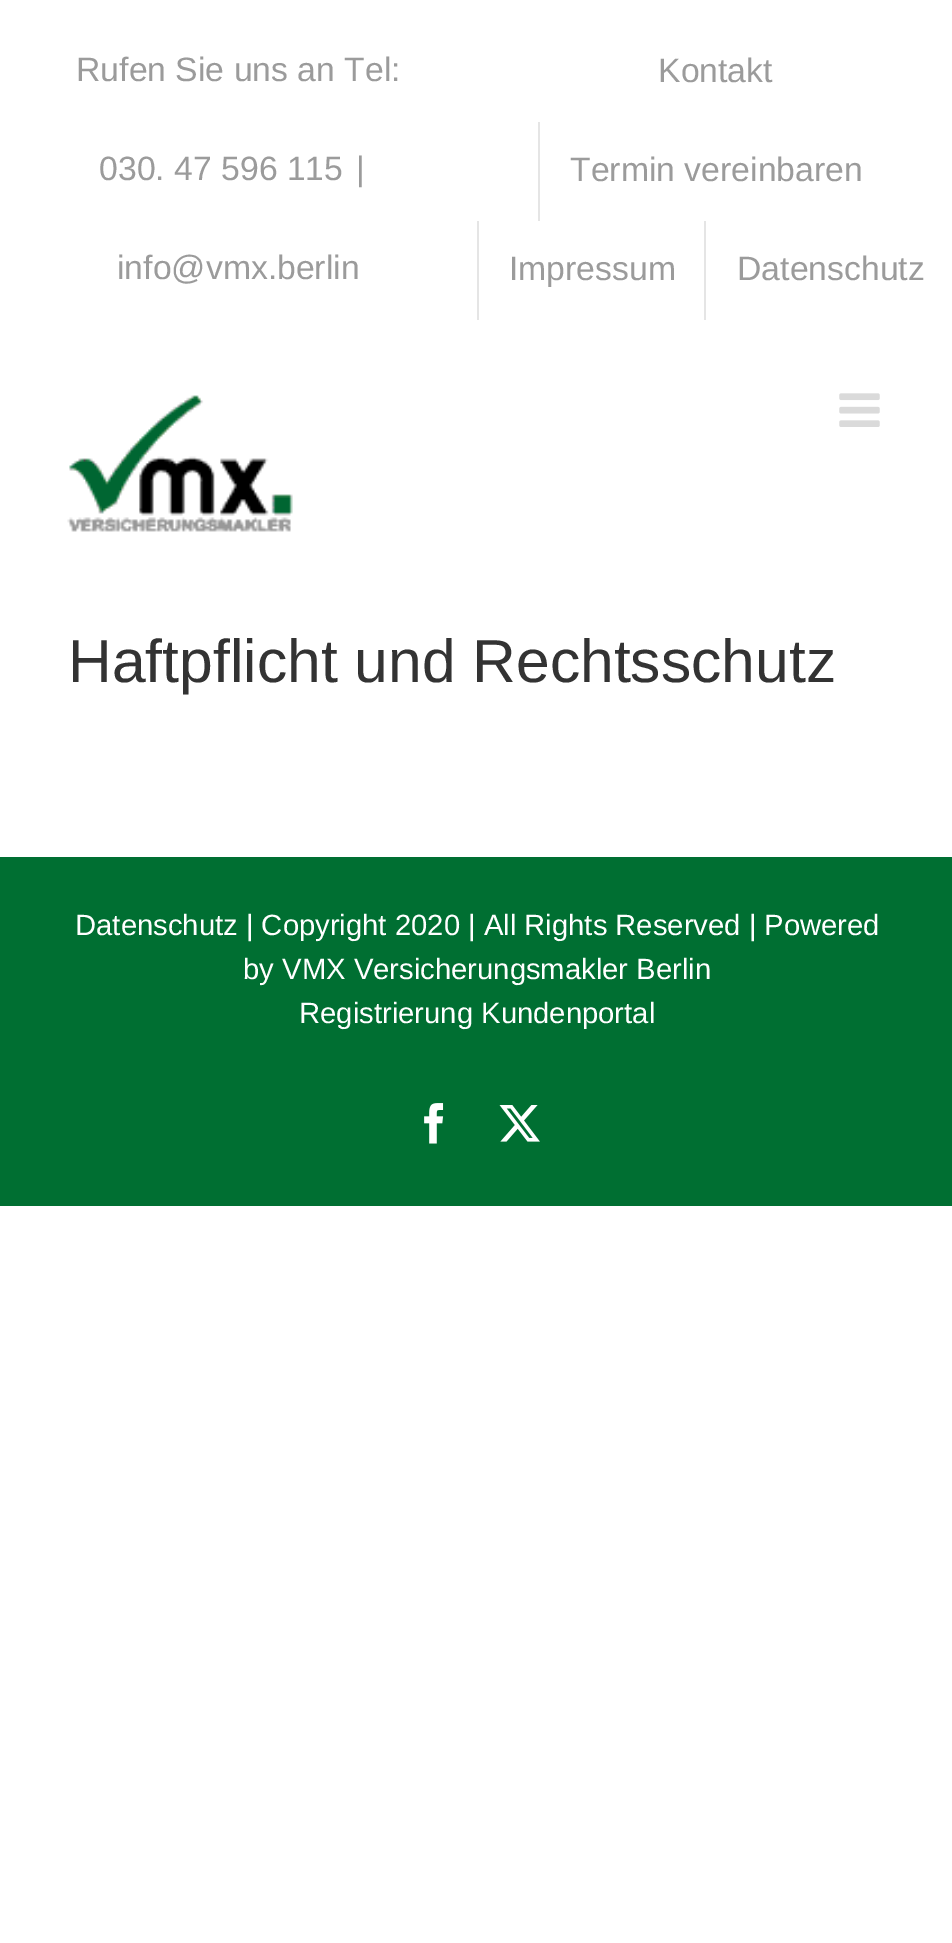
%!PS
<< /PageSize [952 1943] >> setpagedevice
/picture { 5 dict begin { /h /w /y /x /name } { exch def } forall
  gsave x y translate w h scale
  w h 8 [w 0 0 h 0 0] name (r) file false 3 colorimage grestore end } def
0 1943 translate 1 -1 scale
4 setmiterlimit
1 setgray
0 0 952 1943 rectfill
/LiberationSans-Regular [33.75 0 0 -33.75 0 0] selectfont
0.608 setgray
76 81 moveto (Rufen Sie uns an Tel:) show
99 180 moveto (030. 47 596 115) show
356 180 moveto (|) show
117 279 moveto (info@vmx.berlin) show
658 82 moveto (Kontakt) show
0.898 setgray
538 122 2 99 rectfill
0.608 setgray
570 181 moveto (Termin vereinbaren) show
0.898 setgray
477 221 2 99 rectfill
0.608 setgray
509 280 moveto (Impressum) show
0.898 setgray
704 221 2 99 rectfill
0.608 setgray
737 280 moveto (Datenschutz) show
(img1.rgb) 67 395 226 137 picture
(img2.rgb) 839 393 41 34 picture
/LiberationSans-Regular [60.6 0 0 -60.6 0 0] selectfont
0.2 setgray
68 682 moveto (Haftpflicht und Rechtsschutz) show
0 0.435 0.196 setrgbcolor
0 857 952 349 rectfill
/LiberationSans-Regular [29.25 0 0 -29.25 0 0] selectfont
1 setgray
75 935 moveto (Datenschutz | Copyright 2020 | All Rights Reserved | Powered) show
243 979 moveto (by VMX Versicherungsmakler Berlin) show
299 1023 moveto (Registrierung Kundenportal) show
(img3.rgb) 424 1103 20 41 picture
(img4.rgb) 499 1105 41 37 picture
showpage
